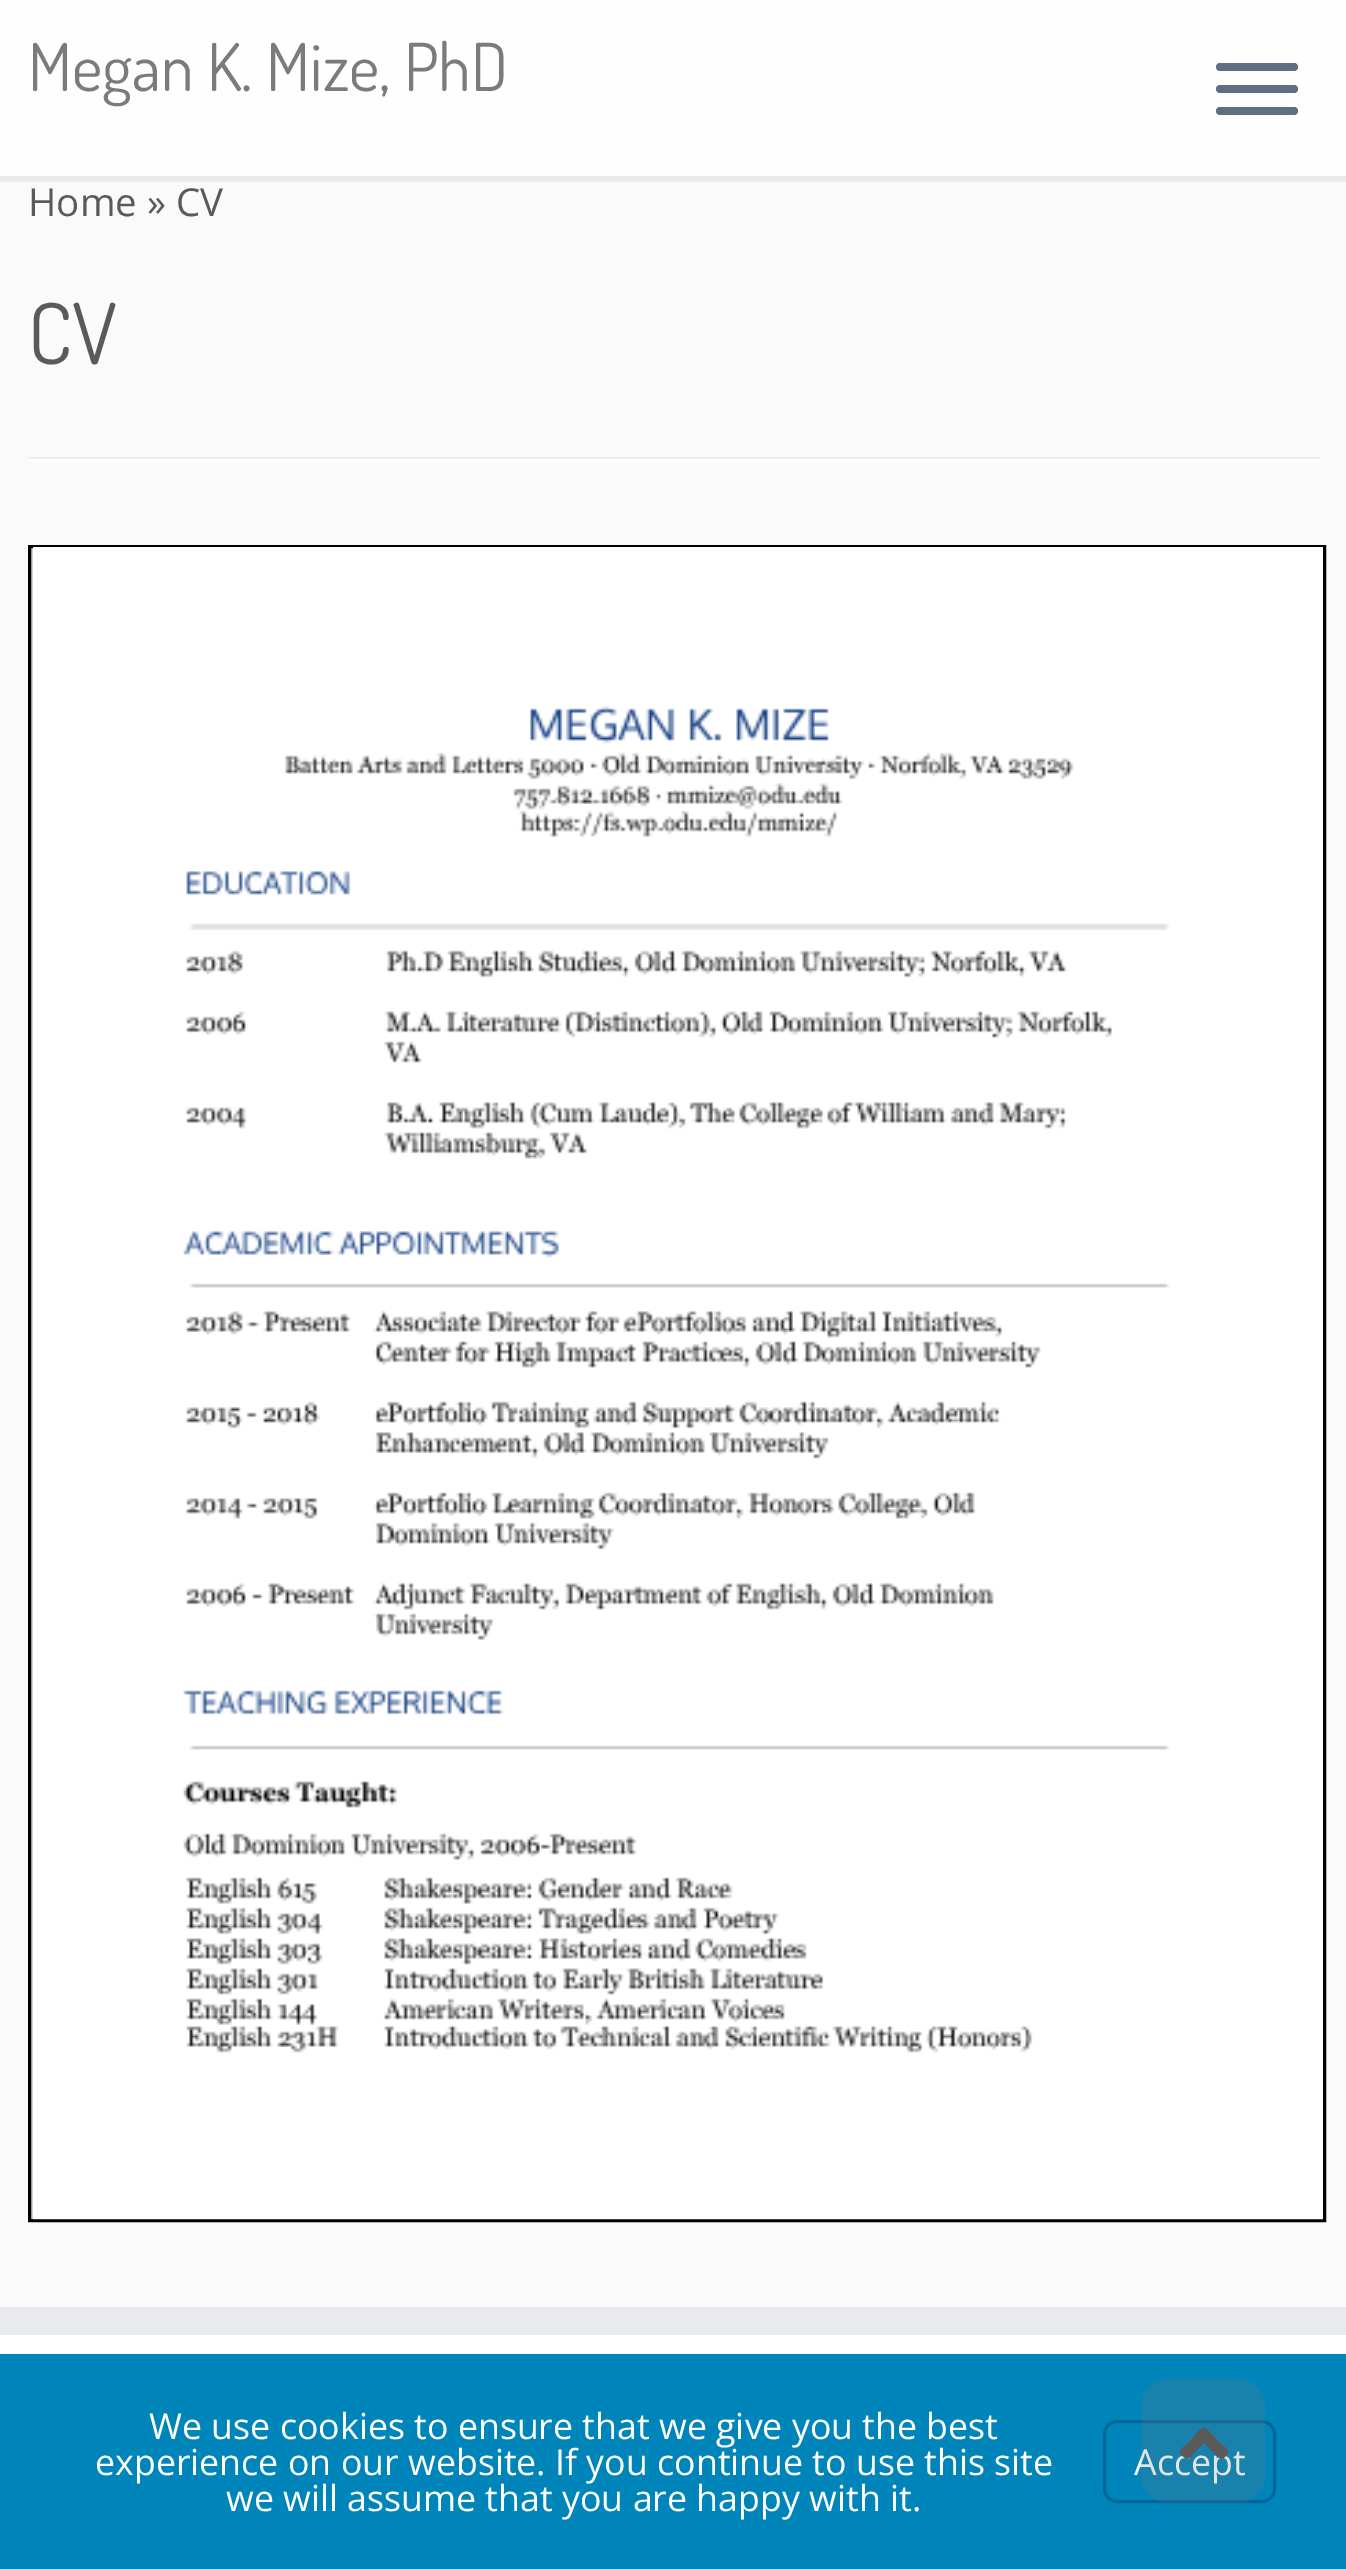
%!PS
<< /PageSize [1346 2569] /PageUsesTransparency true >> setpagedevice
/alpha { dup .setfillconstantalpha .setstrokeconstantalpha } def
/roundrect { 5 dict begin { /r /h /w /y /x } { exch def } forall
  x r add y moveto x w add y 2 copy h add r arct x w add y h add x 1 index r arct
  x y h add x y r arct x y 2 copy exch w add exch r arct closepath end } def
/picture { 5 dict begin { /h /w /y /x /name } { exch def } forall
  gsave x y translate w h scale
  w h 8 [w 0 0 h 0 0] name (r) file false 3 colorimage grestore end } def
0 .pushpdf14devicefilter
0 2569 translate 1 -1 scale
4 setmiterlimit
0.98 setgray
0 0 1346 2569 rectfill
0.996 setgray
0 0 1346 176 rectfill
0.914 0.918 0.933 setrgbcolor
0 176 1346 6 rectfill
/Dosis-Regular [66 0 0 -66 0 0] selectfont
0.482 setgray
28 91 moveto (Megan K. Mize, PhD) show
0.373 0.435 0.506 setrgbcolor
1216 63 82 8 4 roundrect fill
1216 85 82 8 4 roundrect fill
1216 107 82 8 4 roundrect fill
/OpenSans-Regular [38.5 0 0 -38.5 0 0] selectfont
0.353 setgray
28 216 moveto (Home » CV) show
/Dosis-Regular [84 0 0 -84 0 0] selectfont
28 364 moveto (CV) show
0.933 setgray
28 457 1292 2 rectfill
1 setgray
28 459 1292 3 rectfill
0.827 setgray
31 548 2 1671 rectfill
0 setgray
3 setlinewidth
29.5 546.5 1295 1674 rectstroke
1 setgray
33 547 1290 159 rectfill
(img1.rgb) 33 706 1290 1514 picture
0.914 0.918 0.933 setrgbcolor
0 2307 1346 28 rectfill
1 setgray
0 2335 1346 19 rectfill
0 0.522 0.729 setrgbcolor
0 2354 1346 215 rectfill
0 0.404 0.6 setrgbcolor
1104.5 2421.5 170 80 12.5 roundrect stroke
/OpenSans-Regular [35.75 0 0 -35.75 0 0] selectfont
1 setgray
1134 2475 moveto (Accept) show
0.2 alpha
0.467 setgray
1141 2379 124 124 28 roundrect fill
1 alpha
0.353 setgray
newpath 1207 2429 moveto 1220 2443 lineto 1227 2449 1231 2450 1225 2457 curveto 1220 2461 1218 2457 1214 2453 curveto 1204 2443 lineto 1194 2453 lineto 1192 2455 1188 2461 1185 2458 curveto 1176 2451 1180 2450 1188 2443 curveto 1198 2432 lineto 1200 2430 1203 2426 1207 2429 curveto closepath fill
1 setgray
149 2439 moveto (We use cookies to ensure that we give you the best) show
95 2475 moveto (experience on our website. If you continue to use this site) show
226 2511 moveto (we will assume that you are happy with it.) show
.poppdf14devicefilter showpage
